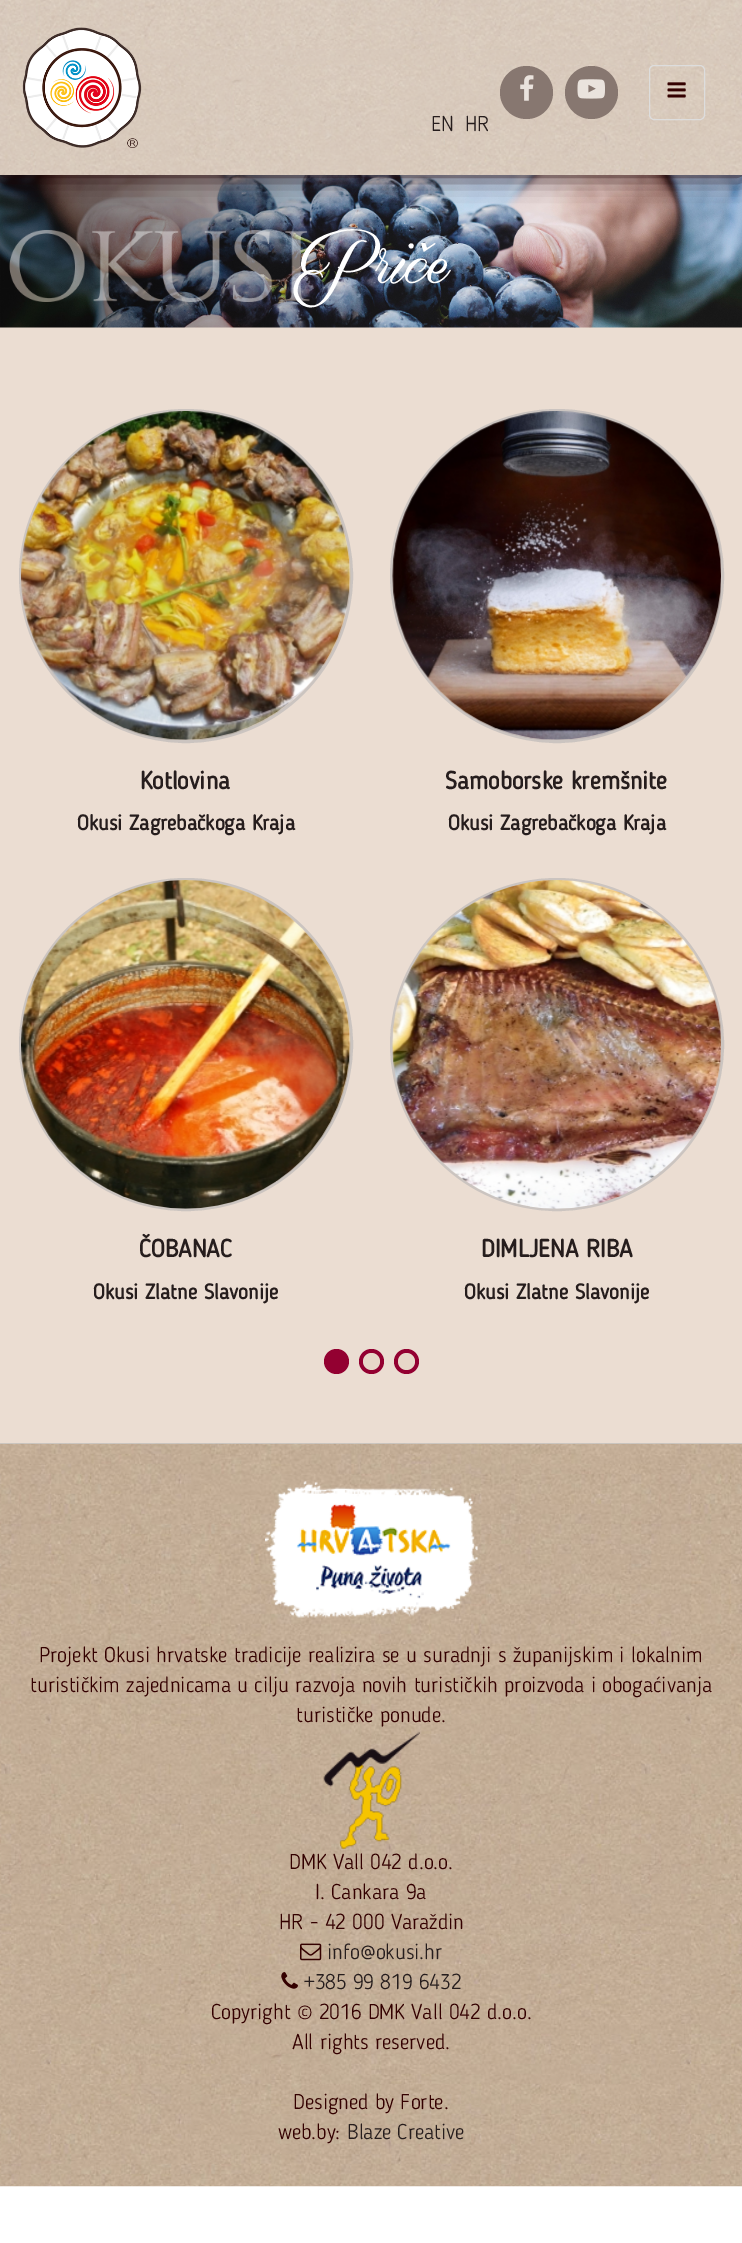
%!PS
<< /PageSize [742 2243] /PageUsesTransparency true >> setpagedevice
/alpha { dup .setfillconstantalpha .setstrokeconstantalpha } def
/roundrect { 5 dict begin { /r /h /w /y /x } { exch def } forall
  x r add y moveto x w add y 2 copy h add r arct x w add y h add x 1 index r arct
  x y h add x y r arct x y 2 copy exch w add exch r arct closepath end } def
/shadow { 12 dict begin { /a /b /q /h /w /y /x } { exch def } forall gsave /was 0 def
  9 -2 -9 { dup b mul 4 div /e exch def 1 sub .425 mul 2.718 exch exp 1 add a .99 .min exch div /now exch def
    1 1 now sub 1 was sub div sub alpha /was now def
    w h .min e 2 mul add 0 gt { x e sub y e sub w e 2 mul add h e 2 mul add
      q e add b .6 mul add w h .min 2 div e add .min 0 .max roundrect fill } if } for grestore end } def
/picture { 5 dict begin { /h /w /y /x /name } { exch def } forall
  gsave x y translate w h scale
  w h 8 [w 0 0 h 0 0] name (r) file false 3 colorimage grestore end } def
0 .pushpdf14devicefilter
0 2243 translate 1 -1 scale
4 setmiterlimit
1 setgray
0 0 742 2243 rectfill
0.922 0.867 0.824 setrgbcolor
0 327 742 1116 rectfill
(img6.rgb) 0 175 742 153 picture
0.122 0 0 setrgbcolor
0 0 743 175 0 12.5 1 shadow
(img1.rgb) 0 0 742 175 picture
(img2.rgb) 22 27 120 121 picture
0.529 0.467 0.439 setrgbcolor
newpath 526.5 92.5 26.5 0 360 arc closepath fill
(img3.rgb) 520 75 14 26 picture
newpath 591.5 92.5 26.5 0 360 arc closepath fill
(img4.rgb) 577 79 28 20 picture
0.867 setgray
649.5 65.5 55 54 4.5 roundrect stroke
(img5.rgb) 667 82 19 16 picture
/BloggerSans-Light [21.25 0 0 -21.25 0 0] selectfont
0.149 0.114 0.114 setrgbcolor
431 131 moveto (EN) show
465 131 moveto (HR) show
/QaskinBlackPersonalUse-Black [89 0 0 -89 0 0] selectfont
1 setgray
293 289 moveto (Priče) show
0.796 0.769 0.753 setrgbcolor
3 setlinewidth
newpath 186 576 165.5 0 360 arc closepath stroke
(img7.rgb) 21 411 330 329 picture
/BloggerSans-Bold [24.75 0 0 -24.75 0 0] selectfont
0.149 0.114 0.114 setrgbcolor
140 789 moveto (Kotlovina) show
/BloggerSans-Bold [21.25 0 0 -21.25 0 0] selectfont
77 830 moveto (Okusi Zagrebačkoga Kraja) show
0.796 0.769 0.753 setrgbcolor
newpath 557 576 165.5 0 360 arc closepath stroke
(img8.rgb) 392 411 329 329 picture
/BloggerSans-Bold [24.75 0 0 -24.75 0 0] selectfont
0.149 0.114 0.114 setrgbcolor
445 789 moveto (Samoborske kremšnite) show
/BloggerSans-Bold [21.25 0 0 -21.25 0 0] selectfont
448 830 moveto (Okusi Zagrebačkoga Kraja) show
0.796 0.769 0.753 setrgbcolor
20.5 879.5 331 330 165 roundrect stroke
(img9.rgb) 21 880 330 329 picture
/BloggerSans-Bold [24.75 0 0 -24.75 0 0] selectfont
0.149 0.114 0.114 setrgbcolor
139 1257 moveto (ČOBANAC) show
/BloggerSans-Bold [21.25 0 0 -21.25 0 0] selectfont
93 1299 moveto (Okusi Zlatne Slavonije) show
0.796 0.769 0.753 setrgbcolor
391.5 879.5 331 330 165 roundrect stroke
(img10.rgb) 392 880 329 329 picture
/BloggerSans-Bold [24.75 0 0 -24.75 0 0] selectfont
0.149 0.114 0.114 setrgbcolor
481 1257 moveto (DIMLJENA RIBA) show
/BloggerSans-Bold [21.25 0 0 -21.25 0 0] selectfont
464 1299 moveto (Okusi Zlatne Slavonije) show
0.576 0 0.192 setrgbcolor
newpath 336.5 1361.5 12.5 0 360 arc closepath fill
newpath 371.5 1361.5 12.5 0 360 arc closepath fill
0.906 0.843 0.784 setrgbcolor
newpath 371.5 1361.5 8.5 0 360 arc closepath fill
0.576 0 0.192 setrgbcolor
newpath 406.5 1361.5 12.5 0 360 arc closepath fill
0.906 0.843 0.784 setrgbcolor
newpath 406.5 1361.5 8.5 0 360 arc closepath fill
0.8 setgray
0 1443 742 1 rectfill
(img11.rgb) 0 1443 742 744 picture
(img12.rgb) 265 1481 213 137 picture
/BloggerSans-Light [21.25 0 0 -21.25 0 0] selectfont
0.2 0 0 setrgbcolor
39 1662 moveto (Projekt Okusi hrvatske tradicije realizira se u suradnji s županijskim i lokalnim) show
30 1692 moveto (turističkim zajednicama u cilju razvoja novih turističkih proizvoda i obogaćivanja) show
296 1722 moveto (turističke ponude.) show
(img13.rgb) 323 1732 97 117 picture
289 1869 moveto (DMK Vall 042 d.o.o.) show
315 1899 moveto (I. Cankara 9a) show
279 1929 moveto (HR - 42 000 Varaždin) show
(img14.rgb) 300 1943 22 18 picture
0.149 0.114 0.114 setrgbcolor
327 1959 moveto (info@okusi.hr) show
(img15.rgb) 281 1972 17 17 picture
304 1989 moveto (+385 99 819 6432) show
0.2 0 0 setrgbcolor
211 2019 moveto (Copyright © 2016 DMK Vall 042 d.o.o.) show
292 2049 moveto (All rights reserved.) show
293 2109 moveto (Designed by Forte.) show
278 2139 moveto (web.by:) show
0.149 0.114 0.114 setrgbcolor
347 2139 moveto (Blaze Creative) show
.poppdf14devicefilter showpage
